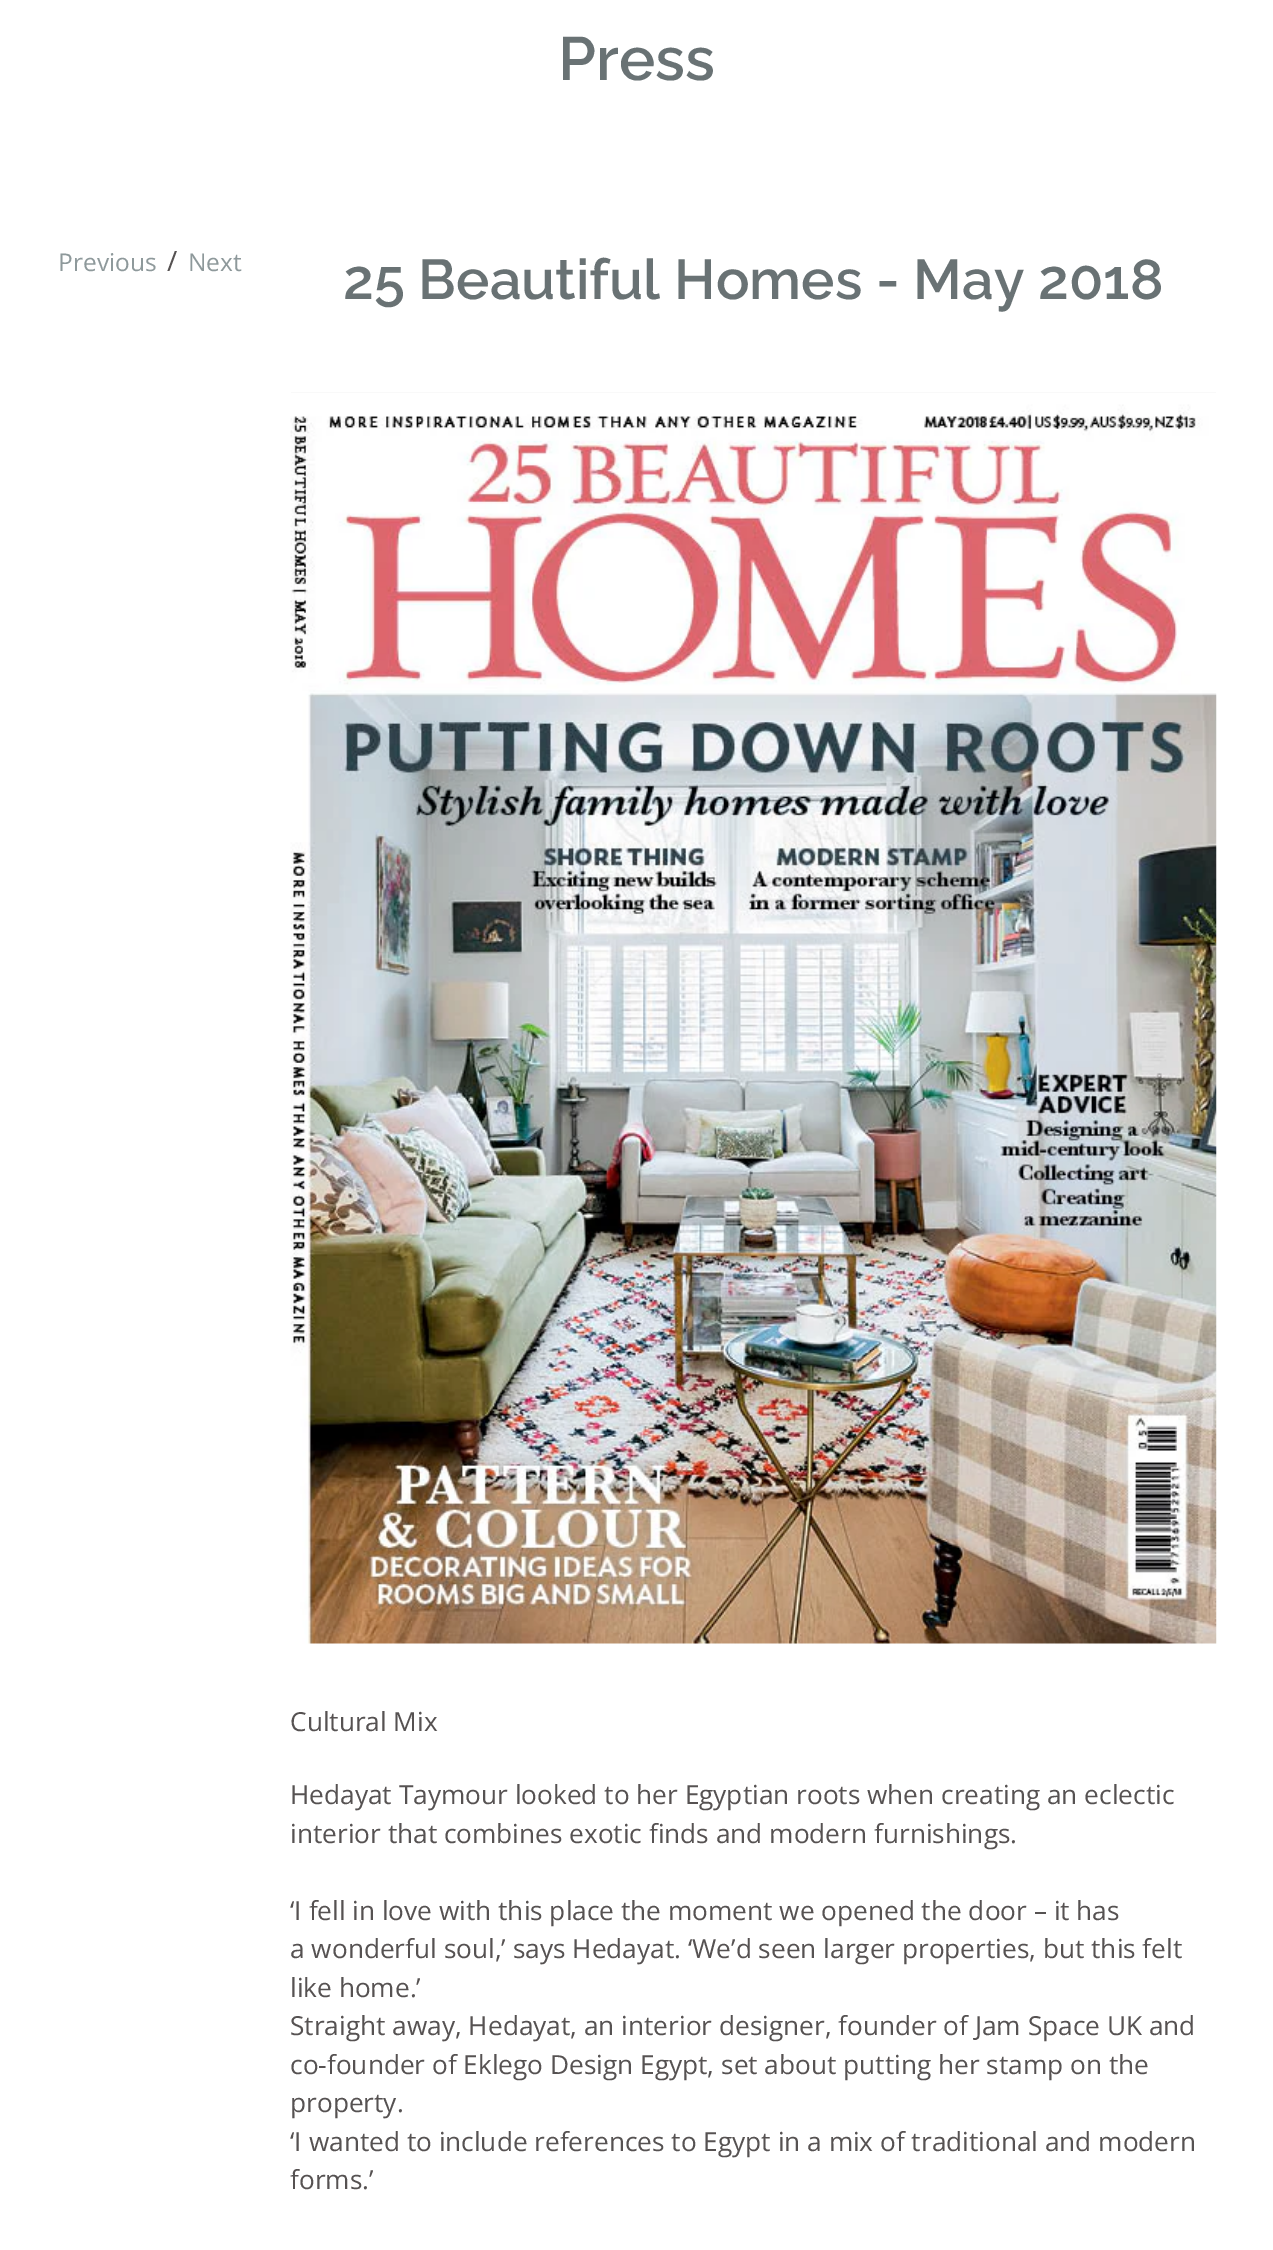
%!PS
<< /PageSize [1273 2250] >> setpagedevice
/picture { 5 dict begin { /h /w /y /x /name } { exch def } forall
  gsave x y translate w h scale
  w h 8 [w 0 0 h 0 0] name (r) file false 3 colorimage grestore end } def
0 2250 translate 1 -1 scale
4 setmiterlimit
1 setgray
0 0 1273 2250 rectfill
/Raleway-SemiBold [61 0 0 -61 0 0] selectfont
0.412 0.447 0.455 setrgbcolor
558 80 moveto (Press) show
/OpenSans-Regular [24.5 0 0 -24.5 0 0] selectfont
0.557 0.6 0.608 setrgbcolor
58 271 moveto (Previous) show
/OpenSans-Regular [28 0 0 -28 0 0] selectfont
0.337 0.322 0.322 setrgbcolor
167 271 moveto (/) show
/OpenSans-Regular [24.5 0 0 -24.5 0 0] selectfont
0.557 0.6 0.608 setrgbcolor
188 271 moveto (Next) show
/Raleway-SemiBold [56 0 0 -56 0 0] selectfont
0.412 0.447 0.455 setrgbcolor
343 299 moveto (25 Beautiful Homes - May 2018) show
(img1.rgb) 290 392 927 1252 picture
/OpenSans-Regular [26.25 0 0 -26.25 0 0] selectfont
0.337 0.322 0.322 setrgbcolor
290 1731 moveto (Cultural Mix) show
290 1804 moveto (Hedayat Taymour looked to her Egyptian roots when creating an eclectic) show
290 1843 moveto (interior that combines exotic finds and modern furnishings.) show
290 1920 moveto (‘I fell in love with this place the moment we opened the door – it has) show
290 1958 moveto (a wonderful soul,’ says Hedayat. ‘We’d seen larger properties, but this felt) show
290 1997 moveto (like home.’) show
290 2035 moveto (Straight away, Hedayat, an interior designer, founder of Jam Space UK and) show
290 2074 moveto (co-founder of Eklego Design Egypt, set about putting her stamp on the) show
290 2112 moveto (property.) show
290 2151 moveto (‘I wanted to include references to Egypt in a mix of traditional and modern) show
290 2189 moveto (forms.’) show
showpage
